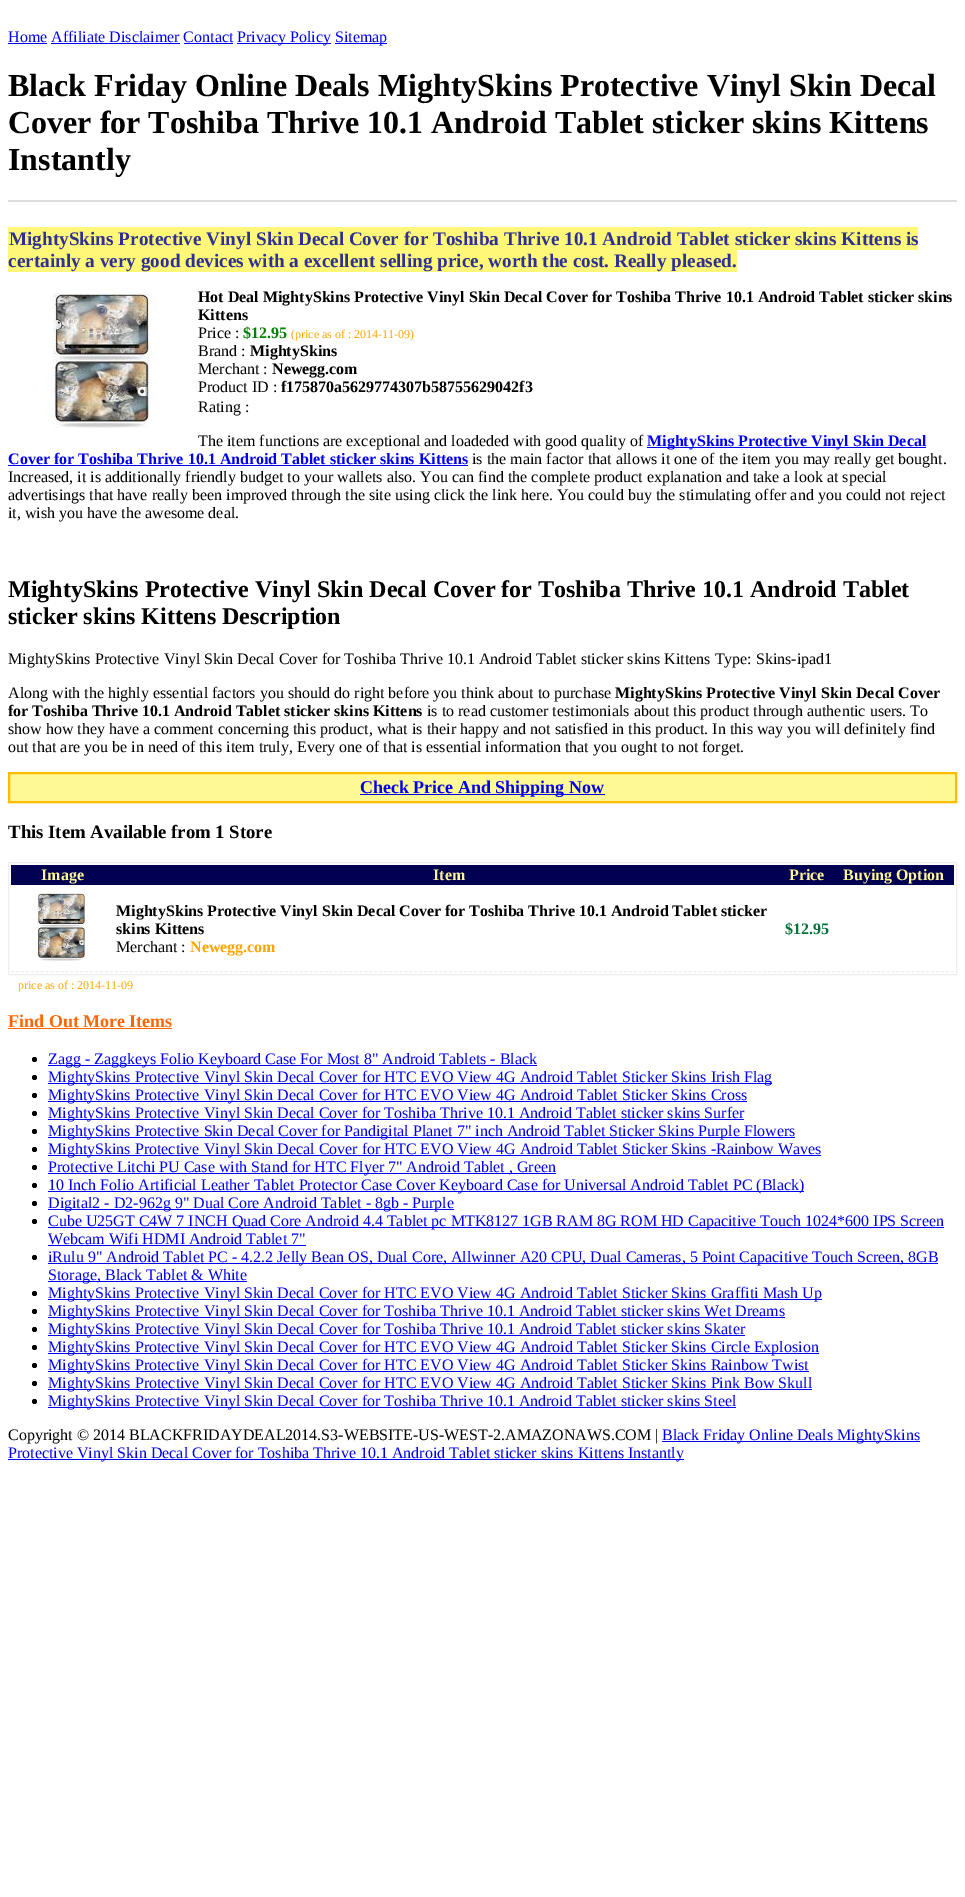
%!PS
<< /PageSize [965 1897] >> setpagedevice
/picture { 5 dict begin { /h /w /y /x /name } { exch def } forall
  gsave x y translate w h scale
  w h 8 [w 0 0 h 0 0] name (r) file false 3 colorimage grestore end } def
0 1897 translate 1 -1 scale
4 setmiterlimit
1 setgray
0 0 965 1897 rectfill
/LiberationSerif-Regular [16 0 0 -16 0 0] selectfont
0 0 0.933 setrgbcolor
8 42 moveto (Home Affiliate Disclaimer Contact) show
8 43 39 1 rectfill
237 43 94 1 rectfill
237 42 moveto (Privacy Policy) show
335 43 52 1 rectfill
335 42 moveto (Sitemap) show
51 43 129 1 rectfill
184 43 49 1 rectfill
/LiberationSerif-Bold [32 0 0 -32 0 0] selectfont
0 setgray
8 96 moveto (Black Friday Online Deals MightySkins Protective Vinyl Skin Decal) show
8 133 moveto (Cover for Toshiba Thrive 10.1 Android Tablet sticker skins Kittens) show
8 170 moveto (Instantly) show
0.867 setgray
8 200 949 2 rectfill
1 0.969 0.467 setrgbcolor
8 227 910 23 rectfill
/LiberationSerif-Bold [19.2 0 0 -19.2 0 0] selectfont
0.18 0.188 0.573 setrgbcolor
9 245 moveto (MightySkins Protective Vinyl Skin Decal Cover for Toshiba Thrive 10.1 Android Tablet sticker skins Kittens is) show
1 0.969 0.467 setrgbcolor
8 250 729 22 rectfill
0.18 0.188 0.573 setrgbcolor
8 267 moveto (certainly a very good devices with a excellent selling price, worth the cost. Really pleased.) show
(img1.rgb) 45 293 112 135 picture
/LiberationSerif-Bold [16 0 0 -16 0 0] selectfont
0 setgray
198 302 moveto (Hot Deal MightySkins Protective Vinyl Skin Decal Cover for Toshiba Thrive 10.1 Android Tablet sticker skins) show
198 320 moveto (Kittens) show
/LiberationSerif-Regular [16 0 0 -16 0 0] selectfont
198 338 moveto (Price :) show
/LiberationSerif-Bold [16 0 0 -16 0 0] selectfont
0 0.502 0 setrgbcolor
243 338 moveto ($12.95) show
/LiberationSerif-Regular [12 0 0 -12 0 0] selectfont
1 0.647 0 setrgbcolor
291 338 moveto (\(price as of : 2014-11-09\)) show
/LiberationSerif-Regular [16 0 0 -16 0 0] selectfont
0 setgray
198 356 moveto (Brand :) show
/LiberationSerif-Bold [16 0 0 -16 0 0] selectfont
250 356 moveto (MightySkins) show
/LiberationSerif-Regular [16 0 0 -16 0 0] selectfont
198 374 moveto (Merchant :) show
/LiberationSerif-Bold [16 0 0 -16 0 0] selectfont
272 374 moveto (Newegg.com) show
/LiberationSerif-Regular [16 0 0 -16 0 0] selectfont
198 392 moveto (Product ID :) show
/LiberationSerif-Bold [16 0 0 -16 0 0] selectfont
281 392 moveto (f175870a5629774307b58755629042f3) show
/LiberationSerif-Regular [16 0 0 -16 0 0] selectfont
198 412 moveto (Rating :) show
198 446 moveto (The item functions are exceptional and loadeded with good quality of) show
0 0 0.933 setrgbcolor
647 447 279 1 rectfill
/LiberationSerif-Bold [16 0 0 -16 0 0] selectfont
647 446 moveto (MightySkins Protective Vinyl Skin Decal) show
8 464 moveto (Cover for Toshiba Thrive 10.1 Android Tablet sticker skins Kittens) show
8 465 460 1 rectfill
/LiberationSerif-Regular [16 0 0 -16 0 0] selectfont
0 setgray
472 464 moveto (is the main factor that allows it one of the item you may really get bought.) show
8 482 moveto (Increased, it is additionally friendly budget to your wallets also. You can find the complete product explanation and take a look at special) show
8 500 moveto (advertisings that have really been improved through the site using click the link here. You could buy the stimulating offer and you could not reject) show
8 518 moveto (it, wish you have the awesome deal.) show
/LiberationSerif-Bold [24 0 0 -24 0 0] selectfont
8 597 moveto (MightySkins Protective Vinyl Skin Decal Cover for Toshiba Thrive 10.1 Android Tablet) show
8 624 moveto (sticker skins Kittens Description) show
/LiberationSerif-Regular [16 0 0 -16 0 0] selectfont
8 664 moveto (MightySkins Protective Vinyl Skin Decal Cover for Toshiba Thrive 10.1 Android Tablet sticker skins Kittens Type: Skins-ipad1) show
8 698 moveto (Along with the highly essential factors you should do right before you think about to purchase) show
/LiberationSerif-Bold [16 0 0 -16 0 0] selectfont
615 698 moveto (MightySkins Protective Vinyl Skin Decal Cover) show
8 716 moveto (for Toshiba Thrive 10.1 Android Tablet sticker skins Kittens) show
/LiberationSerif-Regular [16 0 0 -16 0 0] selectfont
427 716 moveto (is to read customer testimonials about this product through authentic users. To) show
8 734 moveto (show how they have a comment concerning this product, what is their happy and not satisfied in this product. In this way you will definitely find) show
8 752 moveto (out that are you be in need of this item truly, Every one of that is essential information that you ought to not forget.) show
0.996 0.976 0.58 setrgbcolor
newpath 9 773 moveto 956 773 lineto 956 802 lineto 9 802 lineto closepath gsave fill grestore
1 0.733 0 setrgbcolor
2 setlinewidth
stroke
0 0 0.933 setrgbcolor
360 794 245 1 rectfill
/LiberationSerif-Bold [18 0 0 -18 0 0] selectfont
360 793 moveto (Check Price And Shipping Now) show
/LiberationSerif-Bold [18.75 0 0 -18.75 0 0] selectfont
0 setgray
8 838 moveto (This Item Available from 1 Store) show
0.933 setgray
1 setlinewidth
8.5 862.5 948 112 rectstroke
0.008 0 0.314 setrgbcolor
11 865 943 20 rectfill
/LiberationSerif-Bold [16 0 0 -16 0 0] selectfont
1 0.969 0.6 setrgbcolor
41 880 moveto (Image) show
433 880 moveto (Item) show
789 880 moveto (Price) show
843 880 moveto (Buying Option) show
0.933 setgray
[3 1.95] 0 setdash
newpath 11 971.5 moveto 113 971.5 lineto stroke
(img2.rgb) 33 893 56 68 picture
[3 1.99] 0 setdash
newpath 115 971.5 moveto 782 971.5 lineto stroke
0 setgray
116 916 moveto (MightySkins Protective Vinyl Skin Decal Cover for Toshiba Thrive 10.1 Android Tablet sticker) show
116 934 moveto (skins Kittens) show
/LiberationSerif-Regular [16 0 0 -16 0 0] selectfont
116 952 moveto (Merchant :) show
/LiberationSerif-Bold [16 0 0 -16 0 0] selectfont
1 0.647 0 setrgbcolor
190 952 moveto (Newegg.com) show
0.922 setgray
[3 1.78] 0 setdash
newpath 784 971.5 moveto 830 971.5 lineto stroke
0 0.447 0.212 setrgbcolor
785 934 moveto ($12.95) show
0.933 setgray
[3 1.96] 0 setdash
newpath 832 971.5 moveto 954 971.5 lineto stroke
/LiberationSerif-Regular [12 0 0 -12 0 0] selectfont
1 0.647 0 setrgbcolor
18 989 moveto (price as of : 2014-11-09) show
/LiberationSerif-Bold [18 0 0 -18 0 0] selectfont
1 0.4 0 setrgbcolor
8 1027 moveto (Find Out More Items) show
8 1028 164 1 rectfill
0 setgray
newpath 34.5 1059.5 2.5 0 360 arc closepath fill
0 0 0.933 setrgbcolor
48 1065 489 1 rectfill
/LiberationSerif-Regular [16 0 0 -16 0 0] selectfont
48 1064 moveto (Zagg - Zaggkeys Folio Keyboard Case For Most 8" Android Tablets - Black) show
0 setgray
newpath 34.5 1077.5 2.5 0 360 arc closepath fill
0 0 0.933 setrgbcolor
48 1083 724 1 rectfill
48 1082 moveto (MightySkins Protective Vinyl Skin Decal Cover for HTC EVO View 4G Android Tablet Sticker Skins Irish Flag) show
0 setgray
newpath 34.5 1095.5 2.5 0 360 arc closepath fill
0 0 0.933 setrgbcolor
48 1101 699 1 rectfill
48 1100 moveto (MightySkins Protective Vinyl Skin Decal Cover for HTC EVO View 4G Android Tablet Sticker Skins Cross) show
0 setgray
newpath 34.5 1113.5 2.5 0 360 arc closepath fill
0 0 0.933 setrgbcolor
48 1119 696 1 rectfill
48 1118 moveto (MightySkins Protective Vinyl Skin Decal Cover for Toshiba Thrive 10.1 Android Tablet sticker skins Surfer) show
0 setgray
newpath 34.5 1131.5 2.5 0 360 arc closepath fill
0 0 0.933 setrgbcolor
48 1137 747 1 rectfill
48 1136 moveto (MightySkins Protective Skin Decal Cover for Pandigital Planet 7" inch Android Tablet Sticker Skins Purple Flowers) show
0 setgray
newpath 34.5 1149.5 2.5 0 360 arc closepath fill
0 0 0.933 setrgbcolor
48 1155 773 1 rectfill
48 1154 moveto (MightySkins Protective Vinyl Skin Decal Cover for HTC EVO View 4G Android Tablet Sticker Skins -Rainbow Waves) show
0 setgray
newpath 34.5 1167.5 2.5 0 360 arc closepath fill
0 0 0.933 setrgbcolor
48 1173 508 1 rectfill
48 1172 moveto (Protective Litchi PU Case with Stand for HTC Flyer 7" Android Tablet , Green) show
0 setgray
newpath 34.5 1185.5 2.5 0 360 arc closepath fill
0 0 0.933 setrgbcolor
48 1191 756 1 rectfill
48 1190 moveto (10 Inch Folio Artificial Leather Tablet Protector Case Cover Keyboard Case for Universal Android Tablet PC \(Black\)) show
0 setgray
newpath 34.5 1203.5 2.5 0 360 arc closepath fill
0 0 0.933 setrgbcolor
48 1209 406 1 rectfill
48 1208 moveto (Digital2 - D2-962g 9" Dual Core Android Tablet - 8gb - Purple) show
0 setgray
newpath 34.5 1221.5 2.5 0 360 arc closepath fill
0 0 0.933 setrgbcolor
48 1227 896 1 rectfill
48 1226 moveto (Cube U25GT C4W 7 INCH Quad Core Android 4.4 Tablet pc MTK8127 1GB RAM 8G ROM HD Capacitive Touch 1024*600 IPS Screen) show
48 1244 moveto (Webcam Wifi HDMI Android Tablet 7") show
48 1245 258 1 rectfill
0 setgray
newpath 34.5 1257.5 2.5 0 360 arc closepath fill
0 0 0.933 setrgbcolor
48 1263 890 1 rectfill
48 1262 moveto (iRulu 9" Android Tablet PC - 4.2.2 Jelly Bean OS, Dual Core, Allwinner A20 CPU, Dual Cameras, 5 Point Capacitive Touch Screen, 8GB) show
48 1281 199 1 rectfill
48 1280 moveto (Storage, Black Tablet & White) show
0 setgray
newpath 34.5 1293.5 2.5 0 360 arc closepath fill
0 0 0.933 setrgbcolor
48 1299 774 1 rectfill
48 1298 moveto (MightySkins Protective Vinyl Skin Decal Cover for HTC EVO View 4G Android Tablet Sticker Skins Graffiti Mash Up) show
0 setgray
newpath 34.5 1311.5 2.5 0 360 arc closepath fill
0 0 0.933 setrgbcolor
48 1317 737 1 rectfill
48 1316 moveto (MightySkins Protective Vinyl Skin Decal Cover for Toshiba Thrive 10.1 Android Tablet sticker skins Wet Dreams) show
0 setgray
newpath 34.5 1329.5 2.5 0 360 arc closepath fill
0 0 0.933 setrgbcolor
48 1335 697 1 rectfill
48 1334 moveto (MightySkins Protective Vinyl Skin Decal Cover for Toshiba Thrive 10.1 Android Tablet sticker skins Skater) show
0 setgray
newpath 34.5 1347.5 2.5 0 360 arc closepath fill
0 0 0.933 setrgbcolor
48 1353 771 1 rectfill
48 1352 moveto (MightySkins Protective Vinyl Skin Decal Cover for HTC EVO View 4G Android Tablet Sticker Skins Circle Explosion) show
0 setgray
newpath 34.5 1365.5 2.5 0 360 arc closepath fill
0 0 0.933 setrgbcolor
48 1371 761 1 rectfill
48 1370 moveto (MightySkins Protective Vinyl Skin Decal Cover for HTC EVO View 4G Android Tablet Sticker Skins Rainbow Twist) show
0 setgray
newpath 34.5 1383.5 2.5 0 360 arc closepath fill
0 0 0.933 setrgbcolor
48 1389 764 1 rectfill
48 1388 moveto (MightySkins Protective Vinyl Skin Decal Cover for HTC EVO View 4G Android Tablet Sticker Skins Pink Bow Skull) show
0 setgray
newpath 34.5 1401.5 2.5 0 360 arc closepath fill
0 0 0.933 setrgbcolor
48 1407 688 1 rectfill
48 1406 moveto (MightySkins Protective Vinyl Skin Decal Cover for Toshiba Thrive 10.1 Android Tablet sticker skins Steel) show
0 setgray
8 1440 moveto (Copyright © 2014 BLACKFRIDAYDEAL2014.S3-WEBSITE-US-WEST-2.AMAZONAWS.COM |) show
0 0 0.933 setrgbcolor
662 1441 258 1 rectfill
662 1440 moveto (Black Friday Online Deals MightySkins) show
8 1459 676 1 rectfill
8 1458 moveto (Protective Vinyl Skin Decal Cover for Toshiba Thrive 10.1 Android Tablet sticker skins Kittens Instantly) show
showpage
